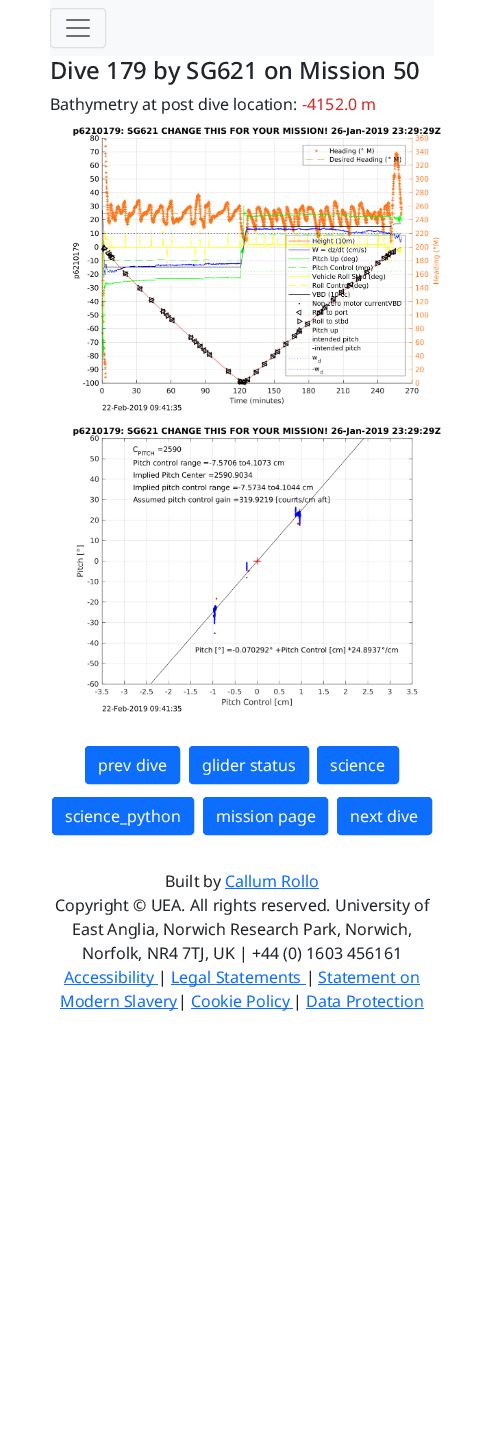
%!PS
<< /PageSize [484 1446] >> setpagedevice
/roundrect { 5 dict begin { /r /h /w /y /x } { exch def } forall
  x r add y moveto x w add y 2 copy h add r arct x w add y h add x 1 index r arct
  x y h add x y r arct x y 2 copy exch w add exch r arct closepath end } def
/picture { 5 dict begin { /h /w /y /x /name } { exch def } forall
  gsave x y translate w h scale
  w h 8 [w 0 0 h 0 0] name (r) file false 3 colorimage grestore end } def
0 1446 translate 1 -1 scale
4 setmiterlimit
1 setgray
0 0 484 1446 rectfill
0.973 0.976 0.98 setrgbcolor
50 0 384 56 rectfill
0.875 0.878 0.882 setrgbcolor
50.5 8.5 55 39 3.5 roundrect stroke
(img1.rgb) 66 19 24 18 picture
/NotoSans-Medium [23.75 0 0 -23.75 0 0] selectfont
0.129 0.145 0.161 setrgbcolor
50 79 moveto (Dive 179 by SG621 on Mission 50) show
/NotoSans-Regular [16 0 0 -16 0 0] selectfont
50 110 moveto (Bathymetry at post dive location:) show
0.851 0.153 0.153 setrgbcolor
302 110 moveto (-4152.0 m) show
(img2.rgb) 72 127 369 284 picture
(img3.rgb) 73 427 368 285 picture
0.051 0.431 0.992 setrgbcolor
85.5 746.5 94 37 3.5 roundrect gsave fill grestore
stroke
1 setgray
98 771 moveto (prev dive) show
0.051 0.431 0.992 setrgbcolor
189.5 746.5 119 37 3.5 roundrect gsave fill grestore
stroke
1 setgray
202 771 moveto (glider status) show
0.051 0.431 0.992 setrgbcolor
317.5 746.5 81 37 3.5 roundrect gsave fill grestore
stroke
1 setgray
330 771 moveto (science) show
0.051 0.431 0.992 setrgbcolor
52.5 797.5 141 37 3.5 roundrect gsave fill grestore
stroke
1 setgray
65 822 moveto (science_python) show
0.051 0.431 0.992 setrgbcolor
203.5 797.5 124 37 3.5 roundrect gsave fill grestore
stroke
1 setgray
216 822 moveto (mission page) show
0.051 0.431 0.992 setrgbcolor
337.5 797.5 94 37 3.5 roundrect gsave fill grestore
stroke
1 setgray
350 822 moveto (next dive) show
0.129 0.145 0.161 setrgbcolor
165 887 moveto (Built by) show
0.051 0.431 0.992 setrgbcolor
225 887 moveto (Callum Rollo) show
225 888 94 1 rectfill
0.129 0.145 0.161 setrgbcolor
55 911 moveto (Copyright © UEA. All rights reserved. University of) show
72 935 moveto (East Anglia, Norwich Research Park, Norwich,) show
82 959 moveto (Norfolk, NR4 7TJ, UK | +44 \(0\) 1603 456161) show
0.051 0.431 0.992 setrgbcolor
64 984 94 1 rectfill
64 983 moveto (Accessibility) show
0.129 0.145 0.161 setrgbcolor
158 983 moveto (|) show
0.051 0.431 0.992 setrgbcolor
171 984 135 1 rectfill
171 983 moveto (Legal Statements) show
0.129 0.145 0.161 setrgbcolor
306 983 moveto (|) show
0.051 0.431 0.992 setrgbcolor
318 983 moveto (Statement on) show
318 984 102 1 rectfill
60 1008 118 1 rectfill
60 1007 moveto (Modern Slavery) show
0.129 0.145 0.161 setrgbcolor
178 1007 moveto (|) show
0.051 0.431 0.992 setrgbcolor
191 1008 102 1 rectfill
191 1007 moveto (Cookie Policy) show
0.129 0.145 0.161 setrgbcolor
293 1007 moveto (|) show
0.051 0.431 0.992 setrgbcolor
306 1007 moveto (Data Protection) show
306 1008 118 1 rectfill
showpage
